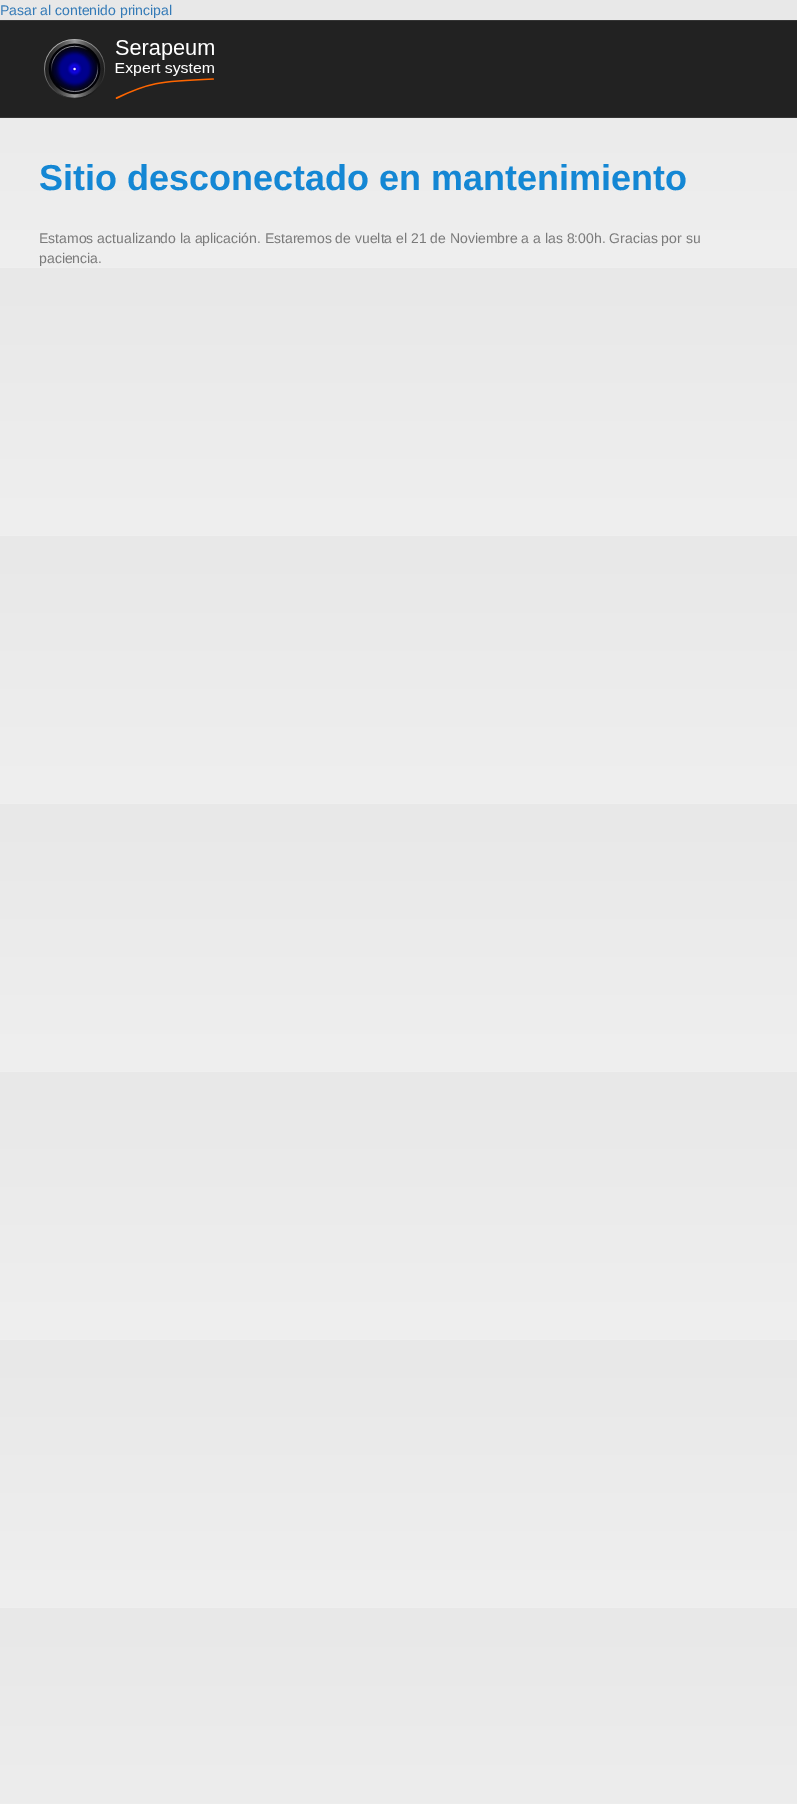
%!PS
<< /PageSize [797 1804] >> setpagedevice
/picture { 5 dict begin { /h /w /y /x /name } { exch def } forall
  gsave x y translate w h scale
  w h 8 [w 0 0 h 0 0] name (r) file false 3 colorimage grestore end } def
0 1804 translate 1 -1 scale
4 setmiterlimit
1 setgray
0 0 797 1804 rectfill
gsave newpath 0 0 moveto 797 0 lineto 797 268 lineto 0 268 lineto closepath clip newpath
<< /ShadingType 2 /ColorSpace /DeviceRGB /Coords [399 0 399 268] /Extend [true true] /Function << /FunctionType 2 /Domain [0 1] /C0 [0.91 0.91 0.91] /C1 [0.937 0.937 0.937] /N 1 >> >> shfill grestore
gsave newpath 0 268 moveto 797 268 lineto 797 536 lineto 0 536 lineto closepath clip newpath
<< /ShadingType 2 /ColorSpace /DeviceRGB /Coords [399 268 399 536] /Extend [true true] /Function << /FunctionType 2 /Domain [0 1] /C0 [0.91 0.91 0.91] /C1 [0.937 0.937 0.937] /N 1 >> >> shfill grestore
gsave newpath 0 536 moveto 797 536 lineto 797 804 lineto 0 804 lineto closepath clip newpath
<< /ShadingType 2 /ColorSpace /DeviceRGB /Coords [399 536 399 804] /Extend [true true] /Function << /FunctionType 2 /Domain [0 1] /C0 [0.91 0.91 0.91] /C1 [0.937 0.937 0.937] /N 1 >> >> shfill grestore
gsave newpath 0 804 moveto 797 804 lineto 797 1072 lineto 0 1072 lineto closepath clip newpath
<< /ShadingType 2 /ColorSpace /DeviceRGB /Coords [399 804 399 1072] /Extend [true true] /Function << /FunctionType 2 /Domain [0 1] /C0 [0.91 0.91 0.91] /C1 [0.937 0.937 0.937] /N 1 >> >> shfill grestore
gsave newpath 0 1072 moveto 797 1072 lineto 797 1340 lineto 0 1340 lineto closepath clip newpath
<< /ShadingType 2 /ColorSpace /DeviceRGB /Coords [399 1072 399 1340] /Extend [true true] /Function << /FunctionType 2 /Domain [0 1] /C0 [0.91 0.91 0.91] /C1 [0.937 0.937 0.937] /N 1 >> >> shfill grestore
gsave newpath 0 1340 moveto 797 1340 lineto 797 1608 lineto 0 1608 lineto closepath clip newpath
<< /ShadingType 2 /ColorSpace /DeviceRGB /Coords [399 1340 399 1608] /Extend [true true] /Function << /FunctionType 2 /Domain [0 1] /C0 [0.91 0.91 0.91] /C1 [0.937 0.937 0.937] /N 1 >> >> shfill grestore
gsave newpath 0 1608 moveto 797 1608 lineto 797 1804 lineto 0 1804 lineto closepath clip newpath
<< /ShadingType 2 /ColorSpace /DeviceRGB /Coords [399 1608 399 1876] /Extend [true true] /Function << /FunctionType 2 /Domain [0 1] /C0 [0.91 0.91 0.91] /C1 [0.937 0.937 0.937] /N 1 >> >> shfill grestore
/LiberationSans-Regular [14 0 0 -14 0 0] selectfont
0.2 0.478 0.718 setrgbcolor
0 15 moveto (Pasar al contenido principal) show
0.133 setgray
0 21 797 96 rectfill
0.208 setgray
0 20 797 1 rectfill
0 117 797 1 rectfill
(img1.rgb) 44 39 170 60 picture
/LiberationSans-Bold [36 0 0 -36 0 0] selectfont
0.078 0.529 0.831 setrgbcolor
39 190 moveto (Sitio desconectado en mantenimiento) show
/LiberationSans-Regular [14 0 0 -14 0 0] selectfont
0.478 setgray
39 243 moveto (Estamos actualizando la aplicación. Estaremos de vuelta el 21 de Noviembre a a las 8:00h. Gracias por su) show
39 263 moveto (paciencia.) show
showpage
